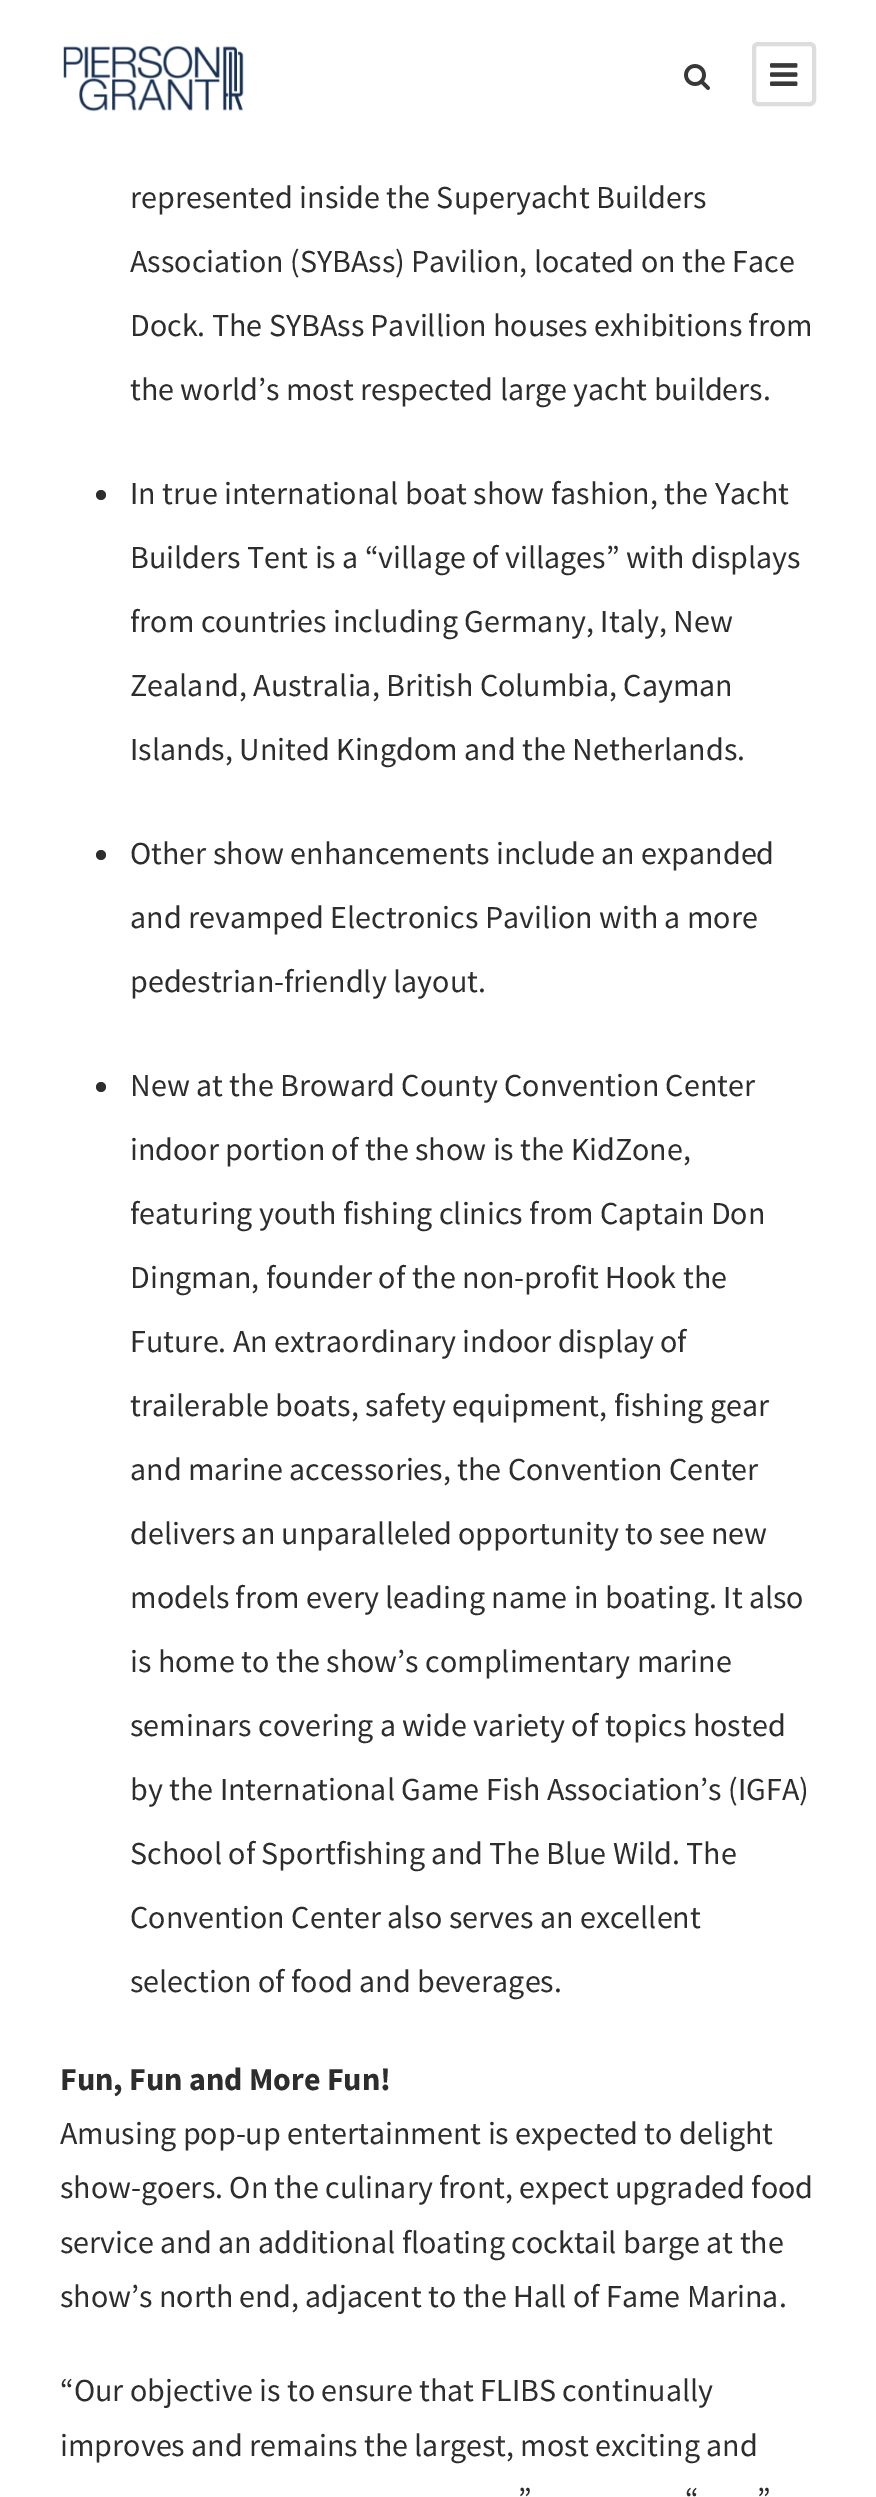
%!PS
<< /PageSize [876 2497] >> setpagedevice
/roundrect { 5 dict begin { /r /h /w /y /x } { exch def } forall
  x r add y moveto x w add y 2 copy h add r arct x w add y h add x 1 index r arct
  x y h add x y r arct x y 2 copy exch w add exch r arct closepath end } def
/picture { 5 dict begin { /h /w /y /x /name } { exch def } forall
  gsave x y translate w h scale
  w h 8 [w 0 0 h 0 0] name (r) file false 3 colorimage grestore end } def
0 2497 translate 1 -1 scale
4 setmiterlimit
1 setgray
0 0 876 2497 rectfill
(img1.rgb) 63 46 181 66 picture
(img2.rgb) 684 64 26 26 picture
0.867 setgray
4 setlinewidth
754 44 60 60 4 roundrect stroke
(img3.rgb) 770 63 28 23 picture
/SourceSansPro-Regular [32 0 0 -32 0 0] selectfont
0.176 setgray
130 208 moveto (represented inside the Superyacht Builders) show
130 272 moveto (Association \(SYBAss\) Pavilion, located on the Face) show
130 336 moveto (Dock. The SYBAss Pavillion houses exhibitions from) show
130 400 moveto (the world’s most respected large yacht builders.) show
newpath 101 495 5 0 360 arc closepath fill
130 504 moveto (In true international boat show fashion, the Yacht) show
130 568 moveto (Builders Tent is a “village of villages” with displays) show
130 632 moveto (from countries including Germany, Italy, New) show
130 696 moveto (Zealand, Australia, British Columbia, Cayman) show
130 760 moveto (Islands, United Kingdom and the Netherlands.) show
newpath 101 855 5 0 360 arc closepath fill
130 864 moveto (Other show enhancements include an expanded) show
130 928 moveto (and revamped Electronics Pavilion with a more) show
130 992 moveto (pedestrian-friendly layout.) show
newpath 101 1087 5 0 360 arc closepath fill
130 1096 moveto (New at the Broward County Convention Center) show
130 1160 moveto (indoor portion of the show is the KidZone,) show
130 1224 moveto (featuring youth fishing clinics from Captain Don) show
130 1288 moveto (Dingman, founder of the non-profit Hook the) show
130 1352 moveto (Future. An extraordinary indoor display of) show
130 1416 moveto (trailerable boats, safety equipment, fishing gear) show
130 1480 moveto (and marine accessories, the Convention Center) show
130 1544 moveto (delivers an unparalleled opportunity to see new) show
130 1608 moveto (models from every leading name in boating. It also) show
130 1672 moveto (is home to the show’s complimentary marine) show
130 1736 moveto (seminars covering a wide variety of topics hosted) show
130 1800 moveto (by the International Game Fish Association’s \(IGFA\)) show
130 1864 moveto (School of Sportfishing and The Blue Wild. The) show
130 1928 moveto (Convention Center also serves an excellent) show
130 1992 moveto (selection of food and beverages.) show
/SourceSansPro-Bold [32 0 0 -32 0 0] selectfont
60 2090 moveto (Fun, Fun and More Fun!) show
/SourceSansPro-Regular [32 0 0 -32 0 0] selectfont
60 2144 moveto (Amusing pop-up entertainment is expected to delight) show
60 2198 moveto (show-goers. On the culinary front, expect upgraded food) show
60 2253 moveto (service and an additional floating cocktail barge at the) show
60 2307 moveto (show’s north end, adjacent to the Hall of Fame Marina.) show
60 2401 moveto (“Our objective is to ensure that FLIBS continually) show
60 2456 moveto (improves and remains the largest, most exciting and) show
518 2510 moveto (”) show
685 2510 moveto (“) show
757 2510 moveto (”) show
showpage
